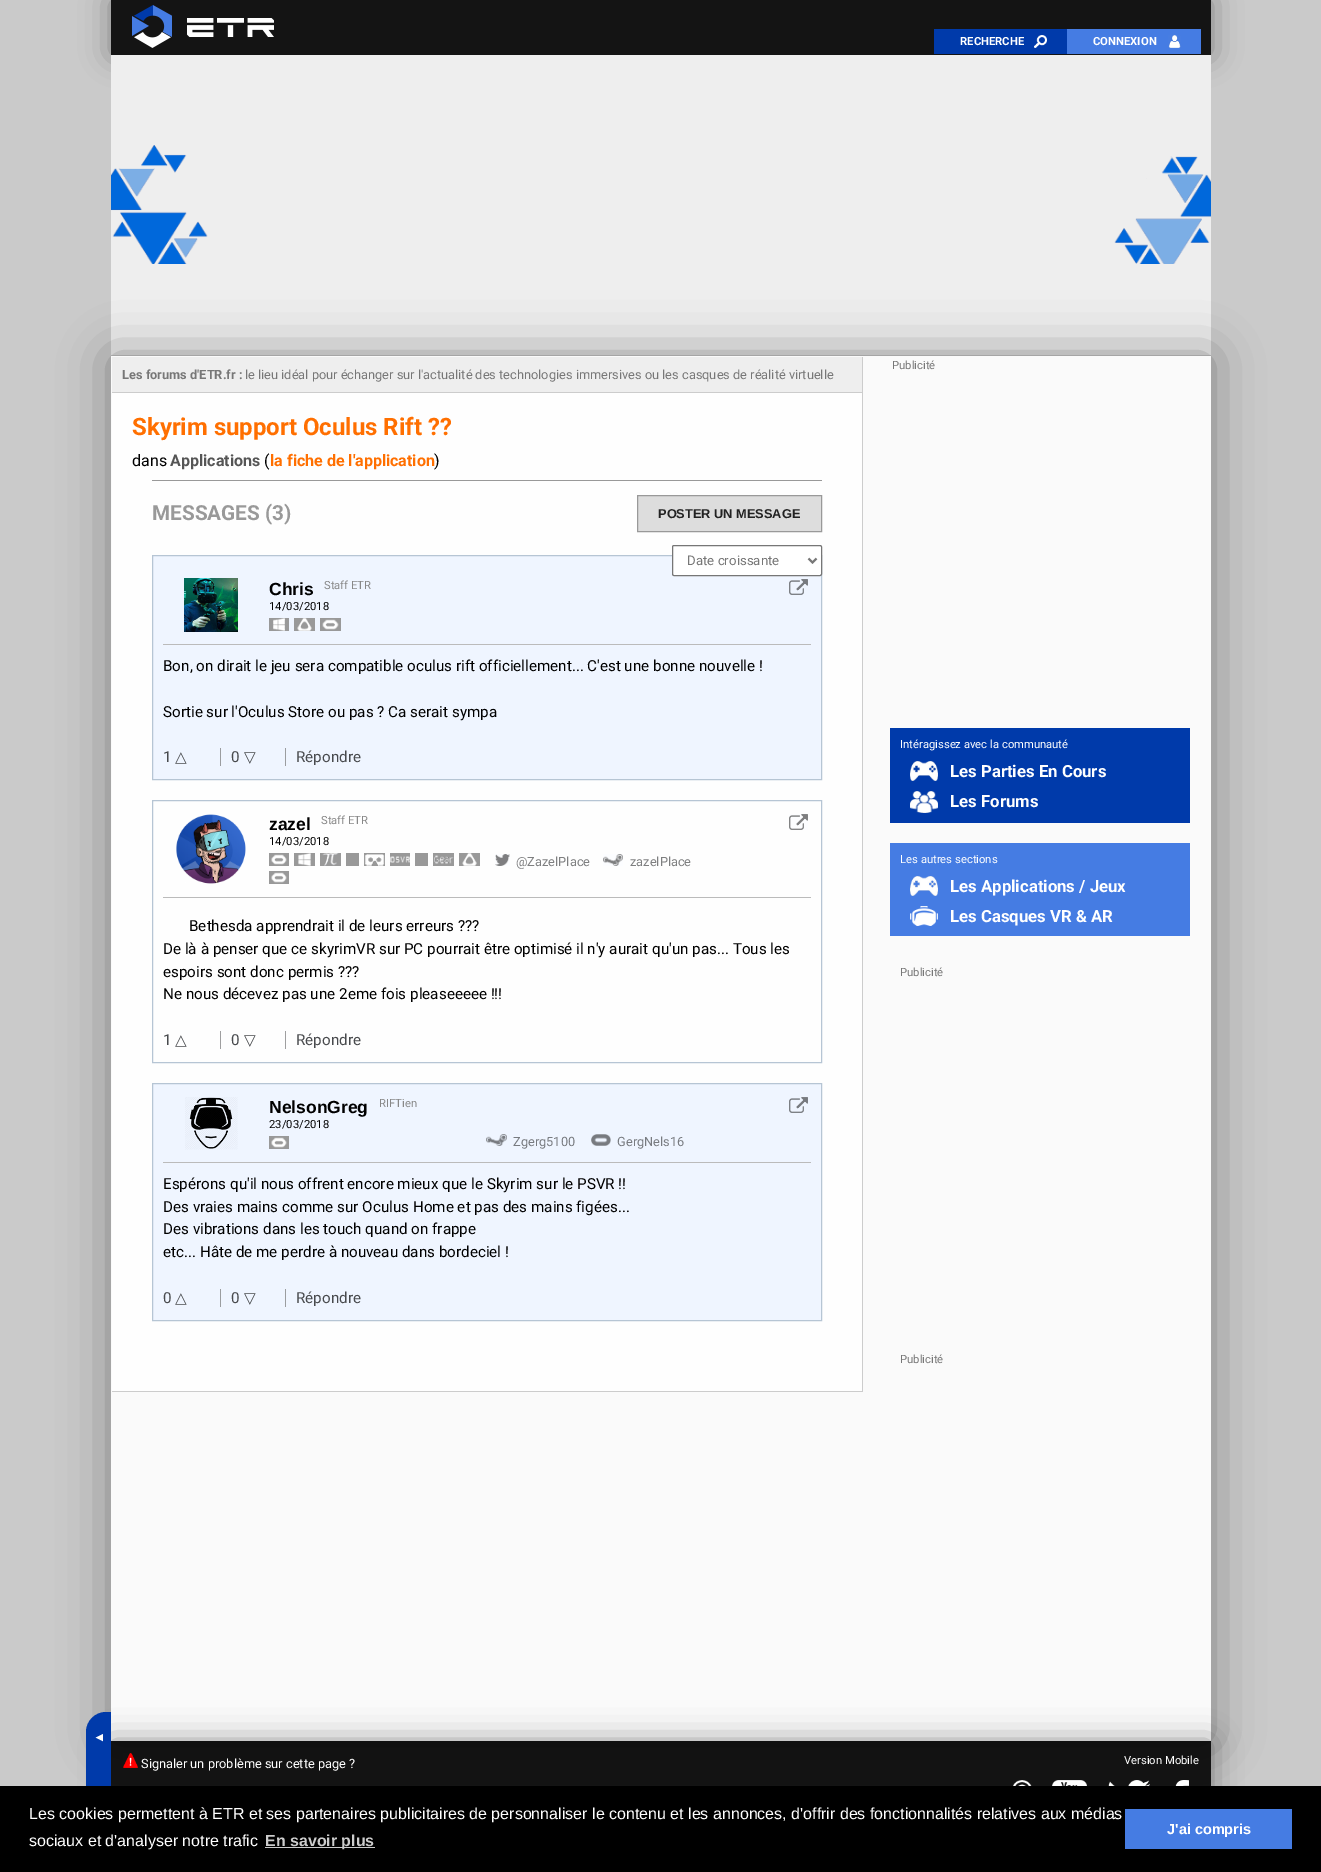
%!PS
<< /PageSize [1321 1872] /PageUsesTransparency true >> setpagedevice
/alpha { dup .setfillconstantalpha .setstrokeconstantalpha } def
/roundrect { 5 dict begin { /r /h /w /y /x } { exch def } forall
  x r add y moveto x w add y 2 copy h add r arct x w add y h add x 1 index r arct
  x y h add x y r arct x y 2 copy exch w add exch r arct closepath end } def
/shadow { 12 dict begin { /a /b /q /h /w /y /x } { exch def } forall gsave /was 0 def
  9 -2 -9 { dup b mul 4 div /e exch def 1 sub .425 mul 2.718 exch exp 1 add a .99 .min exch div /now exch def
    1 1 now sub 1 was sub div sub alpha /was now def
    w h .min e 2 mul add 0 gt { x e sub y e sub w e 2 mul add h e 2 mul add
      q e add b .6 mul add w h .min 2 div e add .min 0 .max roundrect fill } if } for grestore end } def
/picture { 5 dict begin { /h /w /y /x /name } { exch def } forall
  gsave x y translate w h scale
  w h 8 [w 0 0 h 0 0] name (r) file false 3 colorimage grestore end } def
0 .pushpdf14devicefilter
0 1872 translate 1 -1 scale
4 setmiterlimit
0.792 setgray
0 0 1321 1872 rectfill
0.196 setgray
111 0 1100 55 0 15 0.5 shadow
0.078 setgray
111 0 1100 55 rectfill
(img1.rgb) 132 5 142 43 picture
0 0.227 0.667 setrgbcolor
934 29 133 25 rectfill
/Roboto-Bold [11.25 0 0 -11.25 0 0] selectfont
1 setgray
960 45 moveto (RECHERCHE) show
(img2.rgb) 1034 35 13 13 picture
0.271 0.486 0.89 setrgbcolor
1067 29 134 25 rectfill
1 setgray
1093 45 moveto (CONNEXION) show
(img3.rgb) 1168 35 13 13 picture
0.933 setgray
111 55 1100 300 rectfill
(img4.rgb) 111 145 1100 119 picture
0.196 setgray
111 356 1100 1385 0 25 0.5 shadow
0.98 setgray
111 356 1100 1385 rectfill
0.996 setgray
112 393 750 998 rectfill
0.8 setgray
862 357 1 1035 rectfill
112 1391 751 1 rectfill
0.933 setgray
112 357 750 35 rectfill
0.8 setgray
112 392 750 1 rectfill
/Roboto-Bold [12.8 0 0 -12.8 0 0] selectfont
0.467 setgray
122 379 moveto (Les forums d'ETR.fr :) show
/Roboto-Regular [12.8 0 0 -12.8 0 0] selectfont
245 379 moveto (le lieu idéal pour échanger sur l'actualité des technologies immersives ou les casques de réalité virtuelle) show
/Roboto-Bold [24 0 0 -24 0 0] selectfont
1 0.435 0 setrgbcolor
132 435 moveto (Skyrim support Oculus Rift ??) show
/Roboto-Regular [16 0 0 -16 0 0] selectfont
0 setgray
132 466 moveto (dans) show
/Roboto-Bold [16 0 0 -16 0 0] selectfont
0.333 setgray
170 466 moveto (Applications) show
/Roboto-Regular [16 0 0 -16 0 0] selectfont
0 setgray
264 466 moveto (\() show
/Roboto-Bold [16 0 0 -16 0 0] selectfont
1 0.435 0 setrgbcolor
270 466 moveto (la fiche de l'application) show
/Roboto-Regular [16 0 0 -16 0 0] selectfont
0 setgray
434 466 moveto (\)) show
0.6 setgray
152 480 670 1 rectfill
/Roboto-Bold [20.75 0 0 -20.75 0 0] selectfont
152 520 moveto (MESSAGES \(3\)) show
0.867 setgray
newpath 637.5 495.5 moveto 821.5 495.5 lineto 821.5 531.5 lineto 637.5 531.5 lineto closepath gsave fill grestore
0.6 setgray
stroke
/LiberationSans-Bold [12.8 0 0 -12.8 0 0] selectfont
0.133 setgray
658 518 moveto (POSTER UN MESSAGE) show
0.937 0.961 1 setrgbcolor
newpath 152.5 555.5 moveto 821.5 555.5 lineto 821.5 779.5 lineto 152.5 779.5 lineto closepath gsave fill grestore
0.714 0.773 0.831 setrgbcolor
stroke
1 setgray
672.5 545.5 149 30 1.5 roundrect gsave fill grestore
0.463 setgray
stroke
0.467 setgray
2 setlinewidth
newpath 808.5 558.5 moveto 812.5 562.5 lineto 816.5 558.5 lineto stroke
/Roboto-Regular [13.25 0 0 -13.25 0 0] selectfont
687 565 moveto (Date croissante) show
(img5.rgb) 184 578 54 54 picture
/LiberationSans-Bold [17.5 0 0 -17.5 0 0] selectfont
0 setgray
269 595 moveto (Chris) show
/Roboto-Regular [11.25 0 0 -11.25 0 0] selectfont
0.533 setgray
324 589 moveto (Staff ETR) show
0 setgray
269 610 moveto (14/03/2018) show
0.6 setgray
269 618 20 13 rectfill
(img6.rgb) 273 618 12 13 picture
294 618 21 13 rectfill
(img7.rgb) 297 618 15 13 picture
320 618 21 13 rectfill
(img8.rgb) 322 619 17 11 picture
(img9.rgb) 789 579 19 16 picture
0.733 setgray
163 644 648 1 rectfill
/Roboto-Regular [15.2 0 0 -15.2 0 0] selectfont
0 setgray
163 671 moveto (Bon, on dirait le jeu sera compatible oculus rift officiellement... C'est une bonne nouvelle !) show
163 717 moveto (Sortie sur l'Oculus Store ou pas ? Ca serait sympa) show
0.282 0.29 0.302 setrgbcolor
163 762 moveto (1) show
/DejaVuSans-Regular [15.2 0 0 -15.2 0 0] selectfont
175 762 moveto (△) show
/Roboto-Regular [15.2 0 0 -15.2 0 0] selectfont
231 762 moveto (0) show
0.608 0.616 0.627 setrgbcolor
220 748 1 18 rectfill
/DejaVuSans-Regular [15.2 0 0 -15.2 0 0] selectfont
0.282 0.29 0.302 setrgbcolor
244 762 moveto (▽) show
/Roboto-Regular [15.2 0 0 -15.2 0 0] selectfont
296 762 moveto (Répondre) show
0.608 0.616 0.627 setrgbcolor
285 748 1 18 rectfill
0.714 0.773 0.831 setrgbcolor
1 setlinewidth
152.5 800.5 669 262 rectstroke
(img10.rgb) 176 814 70 70 picture
/LiberationSans-Bold [17.5 0 0 -17.5 0 0] selectfont
0 setgray
269 830 moveto (zazel) show
/Roboto-Regular [11.25 0 0 -11.25 0 0] selectfont
0.533 setgray
321 824 moveto (Staff ETR) show
0 setgray
269 845 moveto (14/03/2018) show
0.6 setgray
269 853 20 13 rectfill
(img11.rgb) 271 854 16 11 picture
294 853 21 13 rectfill
(img12.rgb) 298 853 13 13 picture
320 853 21 13 rectfill
(img13.rgb) 322 853 17 13 picture
346 853 13 13 rectfill
364 853 21 13 rectfill
(img14.rgb) 364 854 21 12 picture
390 853 20 13 rectfill
(img15.rgb) 390 856 20 7 picture
415 853 13 13 rectfill
433 853 21 13 rectfill
(img16.rgb) 434 855 20 9 picture
459 853 21 13 rectfill
(img17.rgb) 462 853 15 13 picture
269 871 20 13 rectfill
(img11.rgb) 271 872 16 11 picture
(img18.rgb) 789 814 19 16 picture
(img19.rgb) 495 854 15 12 picture
/Roboto-Regular [12.8 0 0 -12.8 0 0] selectfont
0.494 0.498 0.502 setrgbcolor
516 866 moveto (@ZazelPlace) show
(img20.rgb) 603 854 20 12 picture
630 866 moveto (zazelPlace) show
0.733 setgray
163 897 648 1 rectfill
/Roboto-Regular [15.2 0 0 -15.2 0 0] selectfont
0 setgray
189 931 moveto (Bethesda apprendrait il de leurs erreurs ???) show
163 954 moveto (De là à penser que ce skyrimVR sur PC pourrait être optimisé il n'y aurait qu'un pas... Tous les) show
163 977 moveto (espoirs sont donc permis ???) show
163 999 moveto (Ne nous décevez pas une 2eme fois pleaseeeee !!!) show
0.282 0.29 0.302 setrgbcolor
163 1045 moveto (1) show
/DejaVuSans-Regular [15.2 0 0 -15.2 0 0] selectfont
175 1045 moveto (△) show
/Roboto-Regular [15.2 0 0 -15.2 0 0] selectfont
231 1045 moveto (0) show
0.624 0.624 0.627 setrgbcolor
220 1031 1 18 rectfill
/DejaVuSans-Regular [15.2 0 0 -15.2 0 0] selectfont
0.282 0.29 0.302 setrgbcolor
244 1045 moveto (▽) show
/Roboto-Regular [15.2 0 0 -15.2 0 0] selectfont
296 1045 moveto (Répondre) show
0.624 0.624 0.627 setrgbcolor
285 1031 1 18 rectfill
0.937 0.961 1 setrgbcolor
newpath 152.5 1083.5 moveto 821.5 1083.5 lineto 821.5 1320.5 lineto 152.5 1320.5 lineto closepath gsave fill grestore
0.714 0.773 0.831 setrgbcolor
stroke
(img21.rgb) 185 1097 53 53 picture
/LiberationSans-Bold [17.5 0 0 -17.5 0 0] selectfont
0 setgray
269 1113 moveto (NelsonGreg) show
/Roboto-Regular [11.25 0 0 -11.25 0 0] selectfont
0.533 setgray
379 1107 moveto (RIFTien) show
0 setgray
269 1128 moveto (23/03/2018) show
0.6 setgray
269 1136 20 13 rectfill
(img11.rgb) 271 1137 16 11 picture
(img9.rgb) 789 1097 19 16 picture
(img22.rgb) 486 1134 21 12 picture
/Roboto-Regular [12.8 0 0 -12.8 0 0] selectfont
0.471 0.482 0.502 setrgbcolor
513 1146 moveto (Zgerg5100) show
(img23.rgb) 591 1134 20 12 picture
617 1146 moveto (GergNels16) show
0.733 setgray
163 1162 648 1 rectfill
/Roboto-Regular [15.2 0 0 -15.2 0 0] selectfont
0 setgray
163 1189 moveto (Espérons qu'il nous offrent encore mieux que le Skyrim sur le PSVR !!) show
163 1212 moveto (Des vraies mains comme sur Oculus Home et pas des mains figées...) show
163 1234 moveto (Des vibrations dans les touch quand on frappe) show
163 1257 moveto (etc... Hâte de me perdre à nouveau dans bordeciel !) show
0.282 0.29 0.302 setrgbcolor
163 1303 moveto (0) show
/DejaVuSans-Regular [15.2 0 0 -15.2 0 0] selectfont
175 1303 moveto (△) show
/Roboto-Regular [15.2 0 0 -15.2 0 0] selectfont
231 1303 moveto (0) show
0.608 0.616 0.627 setrgbcolor
220 1289 1 18 rectfill
/DejaVuSans-Regular [15.2 0 0 -15.2 0 0] selectfont
0.282 0.29 0.302 setrgbcolor
244 1303 moveto (▽) show
/Roboto-Regular [15.2 0 0 -15.2 0 0] selectfont
296 1303 moveto (Répondre) show
0.608 0.616 0.627 setrgbcolor
285 1289 1 18 rectfill
/Roboto-Regular [11.25 0 0 -11.25 0 0] selectfont
0.467 setgray
892 369 moveto (Publicité) show
0 0.227 0.667 setrgbcolor
890 728 300 95 rectfill
1 setgray
900 748 moveto (Intéragissez avec la communauté) show
(img24.rgb) 910 761 28 20 picture
/Roboto-Bold [16.75 0 0 -16.75 0 0] selectfont
950 777 moveto (Les Parties En Cours) show
(img25.rgb) 910 791 28 22 picture
950 807 moveto (Les Forums) show
0.271 0.486 0.89 setrgbcolor
890 843 300 93 rectfill
/Roboto-Regular [11.25 0 0 -11.25 0 0] selectfont
1 setgray
900 863 moveto (Les autres sections) show
(img26.rgb) 910 876 28 20 picture
/Roboto-Bold [16.75 0 0 -16.75 0 0] selectfont
950 892 moveto (Les Applications / Jeux) show
(img27.rgb) 910 906 28 20 picture
950 922 moveto (Les Casques VR & AR) show
/Roboto-Regular [11.25 0 0 -11.25 0 0] selectfont
0.467 setgray
900 976 moveto (Publicité) show
900 1363 moveto (Publicité) show
gsave
newpath 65 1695 moveto 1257 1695 lineto 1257 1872 lineto 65 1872 lineto closepath 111 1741 moveto 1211 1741 lineto 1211 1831 lineto 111 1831 lineto closepath eoclip newpath
0.196 setgray
111 1741 1100 90 0 15 0.5 shadow
grestore
0 0.227 0.667 setrgbcolor
newpath 106 1712 moveto 111 1712 lineto 111 1862 lineto 106 1862 lineto 95 1862 86 1853 86 1842 curveto 86 1732 lineto 86 1721 95 1712 106 1712 curveto closepath fill
/LiberationSans-Regular [12.8 0 0 -12.8 0 0] selectfont
1 setgray
gsave 103 1744 translate -90 rotate 0 0 moveto (▲) show grestore
0.9 alpha
0 setgray
111 1741 1100 45 rectfill
1 alpha
(img28.rgb) 123 1753 15 15 picture
/Roboto-Regular [12.8 0 0 -12.8 0 0] selectfont
1 setgray
141 1768 moveto (Signaler un problème sur cette page ?) show
/Roboto-Regular [11.25 0 0 -11.25 0 0] selectfont
1124 1764 moveto (Version Mobile) show
(img29.rgb) 1013 1780 19 6 picture
(img30.rgb) 1052 1780 35 6 picture
(img31.rgb) 1108 1780 42 6 picture
(img32.rgb) 1175 1780 14 6 picture
0 setgray
0 1786 1321 86 rectfill
/LiberationSans-Regular [16 0 0 -16 0 0] selectfont
1 setgray
29 1819 moveto (Les cookies permettent à ETR et ses partenaires publicitaires de personnaliser le contenu et les annonces, d'offrir des fonctionnalités relatives aux médias) show
29 1846 moveto (sociaux et d'analyser notre trafic) show
0.8 setgray
265 1847 110 1 rectfill
/LiberationSans-Bold [16 0 0 -16 0 0] selectfont
265 1846 moveto (En savoir plus) show
0.271 0.486 0.89 setrgbcolor
1125 1809 167 40 rectfill
/LiberationSans-Bold [14.5 0 0 -14.5 0 0] selectfont
1 setgray
1167 1834 moveto (J'ai compris) show
.poppdf14devicefilter showpage
